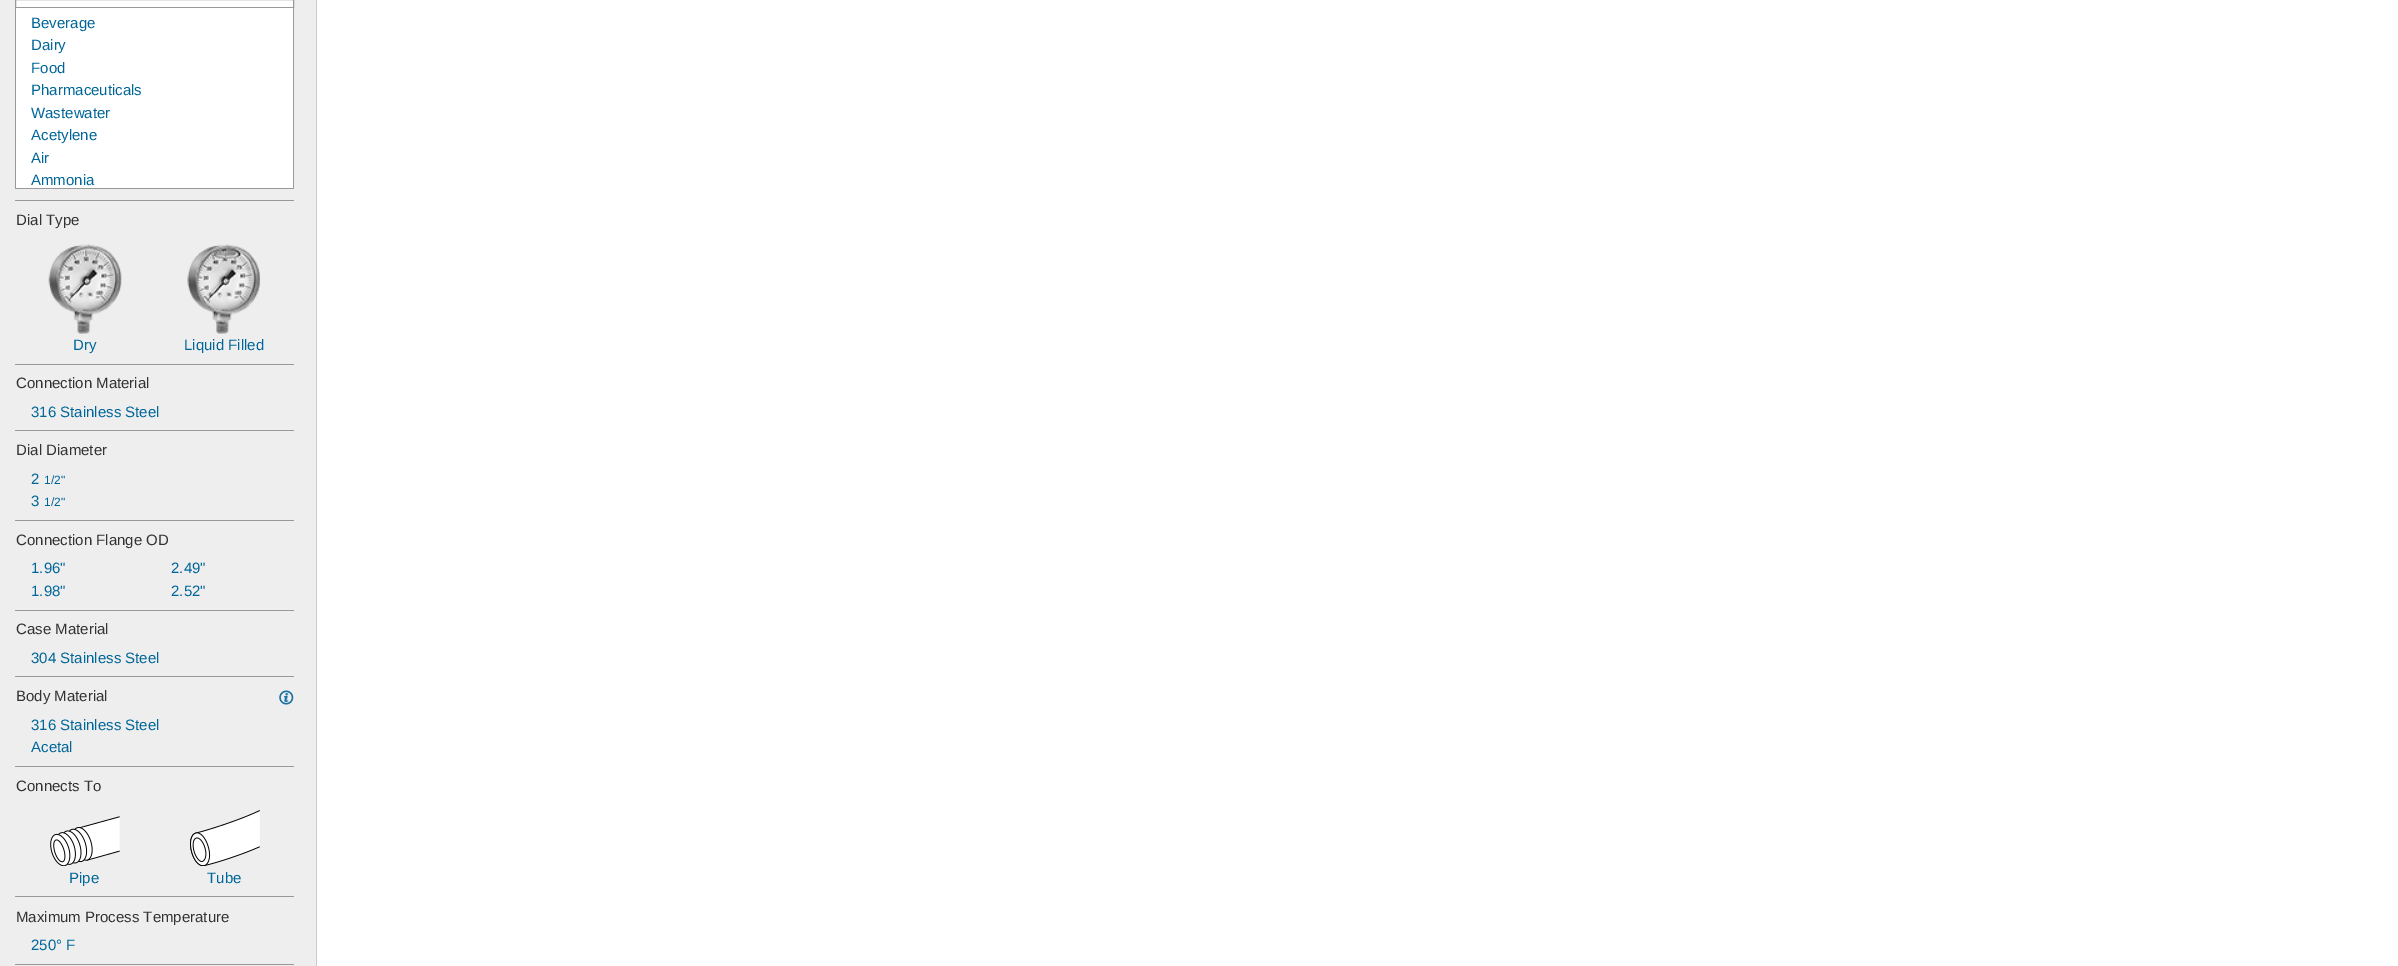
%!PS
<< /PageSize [2398 966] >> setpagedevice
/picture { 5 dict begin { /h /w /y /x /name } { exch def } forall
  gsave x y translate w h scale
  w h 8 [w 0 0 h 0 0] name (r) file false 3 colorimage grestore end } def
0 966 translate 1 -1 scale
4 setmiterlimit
1 setgray
0 0 2398 966 rectfill
0.933 setgray
0 0 316 966 rectfill
0.8 setgray
316 0 1 966 rectfill
1 setgray
newpath 15.5 -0.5 moveto 293.5 -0.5 lineto 293.5 7.5 lineto 15.5 7.5 lineto closepath gsave fill grestore
0.6 setgray
stroke
1 setgray
16 8 277 180 rectfill
0.6 setgray
293 8 1 181 rectfill
15 188 279 1 rectfill
15 8 1 181 rectfill
/LiberationSans-Regular [15 0 0 -15 0 0] selectfont
0 0.4 0.6 setrgbcolor
31 28 moveto (Beverage) show
31 50 moveto (Dairy) show
31 73 moveto (Food) show
31 95 moveto (Pharmaceuticals) show
31 118 moveto (Wastewater) show
31 140 moveto (Acetylene) show
31 163 moveto (Air) show
31 185 moveto (Ammonia) show
0.6 setgray
15 200 279 1 rectfill
0.2 setgray
16 225 moveto (Dial Type) show
(img1.rgb) 48 244 74 90 picture
0 0.4 0.6 setrgbcolor
73 350 moveto (Dry) show
(img2.rgb) 187 244 73 90 picture
184 350 moveto (Liquid Filled) show
0.6 setgray
15 364 279 1 rectfill
0.2 setgray
16 388 moveto (Connection Material) show
0 0.4 0.6 setrgbcolor
31 417 moveto (316 Stainless Steel) show
0.6 setgray
15 430 279 1 rectfill
0.2 setgray
16 455 moveto (Dial Diameter) show
0 0.4 0.6 setrgbcolor
31 484 moveto (2) show
/LiberationSans-Regular [12 0 0 -12 0 0] selectfont
44 484 moveto (1/2") show
/LiberationSans-Regular [15 0 0 -15 0 0] selectfont
31 506 moveto (3) show
/LiberationSans-Regular [12 0 0 -12 0 0] selectfont
44 506 moveto (1/2") show
0.6 setgray
15 520 279 1 rectfill
/LiberationSans-Regular [15 0 0 -15 0 0] selectfont
0.2 setgray
16 545 moveto (Connection Flange OD) show
0 0.4 0.6 setrgbcolor
31 573 moveto (1.96") show
31 596 moveto (1.98") show
171 573 moveto (2.49") show
171 596 moveto (2.52") show
0.6 setgray
15 610 279 1 rectfill
0.2 setgray
16 634 moveto (Case Material) show
0 0.4 0.6 setrgbcolor
31 663 moveto (304 Stainless Steel) show
0.6 setgray
15 676 279 1 rectfill
0.2 setgray
16 701 moveto (Body Material) show
(img3.rgb) 279 690 15 15 picture
0 0.4 0.6 setrgbcolor
31 730 moveto (316 Stainless Steel) show
31 752 moveto (Acetal) show
0.6 setgray
15 766 279 1 rectfill
0.2 setgray
16 791 moveto (Connects To) show
(img4.rgb) 50 816 70 50 picture
0 0.4 0.6 setrgbcolor
69 883 moveto (Pipe) show
(img5.rgb) 190 810 70 56 picture
207 883 moveto (Tube) show
0.6 setgray
15 896 279 1 rectfill
0.2 setgray
16 922 moveto (Maximum Process Temperature) show
0 0.4 0.6 setrgbcolor
31 950 moveto (250° F) show
0.6 setgray
15 964 279 1 rectfill
showpage
